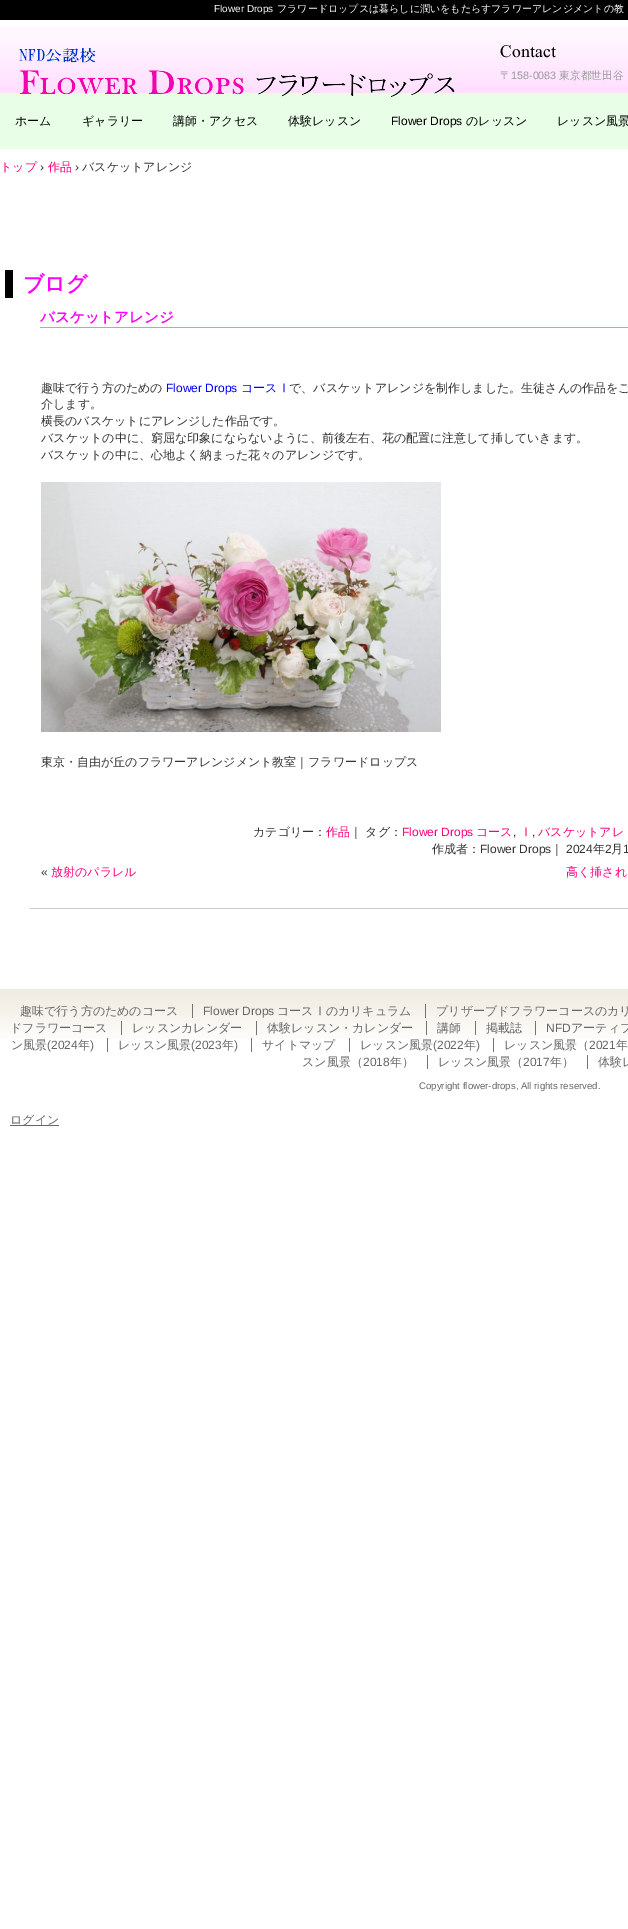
%!PS
<< /PageSize [628 1929] >> setpagedevice
/picture { 5 dict begin { /h /w /y /x /name } { exch def } forall
  gsave x y translate w h scale
  w h 8 [w 0 0 h 0 0] name (r) file false 3 colorimage grestore end } def
0 1929 translate 1 -1 scale
4 setmiterlimit
1 setgray
0 0 628 1929 rectfill
(img1.rgb) 0 26 628 67 picture
0 setgray
0 0 628 20 rectfill
/LiberationSans-Regular [10 0 0 -10 0 0] selectfont
1 setgray
214 12 moveto (Flower Drops) show
/WenQuanYiZenHei-Medium [10 0 0 -10 0 0] selectfont
277 12 moveto (フラワードロップスは暮らしに潤いをもたらすフラワーアレンジメントの教) show
(img4.rgb) 0 93 628 56 picture
(img2.rgb) 19 48 436 50 picture
(img3.rgb) 500 45 56 13 picture
/WenQuanYiZenHei-Medium [10.75 0 0 -10.75 0 0] selectfont
0.6 setgray
500 79 moveto (〒) show
/LiberationSans-Regular [10.75 0 0 -10.75 0 0] selectfont
511 79 moveto (158-0083) show
/WenQuanYiZenHei-Medium [10.75 0 0 -10.75 0 0] selectfont
559 79 moveto (東京都世田谷) show
/WenQuanYiZenHei-Medium [12 0 0 -12 0 0] selectfont
0 setgray
15 125 moveto (ホーム) show
82 125 moveto (ギャラリー) show
173 125 moveto (講師・アクセス) show
288 125 moveto (体験レッスン) show
/LiberationSans-Regular [12 0 0 -12 0 0] selectfont
391 125 moveto (Flower Drops) show
/WenQuanYiZenHei-Medium [12 0 0 -12 0 0] selectfont
466 125 moveto (のレッスン) show
557 125 moveto (レッスン風景) show
1 0 0.502 setrgbcolor
0 171 moveto (トップ) show
/LiberationSans-Regular [12 0 0 -12 0 0] selectfont
0.2 setgray
40 171 moveto (›) show
/WenQuanYiZenHei-Medium [12 0 0 -12 0 0] selectfont
1 0 0.502 setrgbcolor
48 171 moveto (作品) show
/LiberationSans-Regular [12 0 0 -12 0 0] selectfont
0.2 setgray
75 171 moveto (›) show
/WenQuanYiZenHei-Medium [12 0 0 -12 0 0] selectfont
82 171 moveto (バスケットアレンジ) show
0 setgray
5 270 8 28 rectfill
/WenQuanYiZenHei-Bold [21 0 0 -21 0 0] selectfont
1 0 1 setrgbcolor
23 291 moveto (ブログ) show
0.8 setgray
30 908 598 1 rectfill
1 0.647 0 setrgbcolor
40 327 588 1 rectfill
/WenQuanYiZenHei-Bold [14.5 0 0 -14.5 0 0] selectfont
1 0 1 setrgbcolor
40 322 moveto (バスケットアレンジ) show
/WenQuanYiZenHei-Medium [12 0 0 -12 0 0] selectfont
0.2 setgray
41 392 moveto (趣味で行う方のための) show
/LiberationSans-Regular [12 0 0 -12 0 0] selectfont
0 0 1 setrgbcolor
166 392 moveto (Flower Drops) show
/WenQuanYiZenHei-Medium [12 0 0 -12 0 0] selectfont
241 392 moveto (コースⅠ) show
0.2 setgray
289 392 moveto (で、バスケットアレンジを制作しました。生徒さんの作品をご) show
41 408 moveto (介します。) show
41 425 moveto (横長のバスケットにアレンジした作品です。) show
41 442 moveto (バスケットの中に、窮屈な印象にならないように、前後左右、花の配置に注意して挿していきます。) show
41 459 moveto (バスケットの中に、心地よく納まった花々のアレンジです。) show
(img5.rgb) 41 482 400 250 picture
41 766 moveto (東京・自由が丘のフラワーアレンジメント教室｜フラワードロップス) show
253 836 moveto (カテゴリー：) show
1 0 0.502 setrgbcolor
326 836 moveto (作品) show
0.2 setgray
350 836 moveto (｜ タグ：) show
/LiberationSans-Regular [12 0 0 -12 0 0] selectfont
1 0 0.502 setrgbcolor
402 836 moveto (Flower Drops) show
/WenQuanYiZenHei-Medium [12 0 0 -12 0 0] selectfont
476 836 moveto (コース) show
/LiberationSans-Regular [12 0 0 -12 0 0] selectfont
0.2 setgray
513 836 moveto (,) show
/WenQuanYiZenHei-Medium [12 0 0 -12 0 0] selectfont
1 0 0.502 setrgbcolor
520 836 moveto (Ⅰ) show
/LiberationSans-Regular [12 0 0 -12 0 0] selectfont
0.2 setgray
532 836 moveto (,) show
/WenQuanYiZenHei-Medium [12 0 0 -12 0 0] selectfont
1 0 0.502 setrgbcolor
538 836 moveto (バスケットアレ) show
0.2 setgray
432 853 moveto (作成者：) show
/LiberationSans-Regular [12 0 0 -12 0 0] selectfont
480 853 moveto (Flower Drops) show
/WenQuanYiZenHei-Medium [12 0 0 -12 0 0] selectfont
551 853 moveto (｜) show
/LiberationSans-Regular [12 0 0 -12 0 0] selectfont
566 853 moveto (2024) show
/WenQuanYiZenHei-Medium [12 0 0 -12 0 0] selectfont
593 853 moveto (年) show
/LiberationSans-Regular [12 0 0 -12 0 0] selectfont
605 853 moveto (2) show
/WenQuanYiZenHei-Medium [12 0 0 -12 0 0] selectfont
611 853 moveto (月) show
/LiberationSans-Regular [12 0 0 -12 0 0] selectfont
623 853 moveto (1) show
41 876 moveto («) show
/WenQuanYiZenHei-Medium [12 0 0 -12 0 0] selectfont
1 0 0.502 setrgbcolor
51 876 moveto (放射のパラレル) show
566 876 moveto (高く挿され) show
(img6.rgb) 0 989 628 50 picture
0.4 setgray
20 1015 moveto (趣味で行う方のためのコース) show
/LiberationSans-Regular [12 0 0 -12 0 0] selectfont
203 1015 moveto (Flower Drops) show
0.451 setgray
192 1004 1 14 rectfill
/WenQuanYiZenHei-Medium [12 0 0 -12 0 0] selectfont
0.4 setgray
277 1015 moveto (コースⅠのカリキュラム) show
436 1015 moveto (プリザーブドフラワーコースのカリ) show
0.451 setgray
425 1004 1 14 rectfill
0.4 setgray
10 1032 moveto (ドフラワーコース) show
132 1032 moveto (レッスンカレンダー) show
0.451 setgray
121 1021 1 14 rectfill
0.4 setgray
267 1032 moveto (体験レッスン・カレンダー) show
0.451 setgray
256 1021 1 14 rectfill
0.4 setgray
437 1032 moveto (講師) show
0.451 setgray
426 1021 1 14 rectfill
0.4 setgray
486 1032 moveto (掲載誌) show
0.451 setgray
475 1021 1 14 rectfill
/LiberationSans-Regular [12 0 0 -12 0 0] selectfont
0.4 setgray
546 1032 moveto (NFD) show
0.451 setgray
535 1021 1 14 rectfill
/WenQuanYiZenHei-Medium [12 0 0 -12 0 0] selectfont
0.4 setgray
571 1032 moveto (アーティフ) show
11 1049 moveto (ン風景) show
/LiberationSans-Regular [12 0 0 -12 0 0] selectfont
47 1049 moveto (\(2024) show
/WenQuanYiZenHei-Medium [12 0 0 -12 0 0] selectfont
78 1049 moveto (年) show
/LiberationSans-Regular [12 0 0 -12 0 0] selectfont
90 1049 moveto (\)) show
/WenQuanYiZenHei-Medium [12 0 0 -12 0 0] selectfont
118 1049 moveto (レッスン風景) show
0.451 setgray
107 1038 1 14 rectfill
/LiberationSans-Regular [12 0 0 -12 0 0] selectfont
0.4 setgray
191 1049 moveto (\(2023) show
/WenQuanYiZenHei-Medium [12 0 0 -12 0 0] selectfont
222 1049 moveto (年) show
/LiberationSans-Regular [12 0 0 -12 0 0] selectfont
234 1049 moveto (\)) show
/WenQuanYiZenHei-Medium [12 0 0 -12 0 0] selectfont
262 1049 moveto (サイトマップ) show
0.451 setgray
251 1038 1 14 rectfill
0.4 setgray
360 1049 moveto (レッスン風景) show
0.451 setgray
349 1038 1 14 rectfill
/LiberationSans-Regular [12 0 0 -12 0 0] selectfont
0.4 setgray
433 1049 moveto (\(2022) show
/WenQuanYiZenHei-Medium [12 0 0 -12 0 0] selectfont
464 1049 moveto (年) show
/LiberationSans-Regular [12 0 0 -12 0 0] selectfont
476 1049 moveto (\)) show
/WenQuanYiZenHei-Medium [12 0 0 -12 0 0] selectfont
504 1049 moveto (レッスン風景（) show
0.451 setgray
493 1038 1 14 rectfill
/LiberationSans-Regular [12 0 0 -12 0 0] selectfont
0.4 setgray
589 1049 moveto (2021) show
/WenQuanYiZenHei-Medium [12 0 0 -12 0 0] selectfont
616 1049 moveto (年) show
302 1066 moveto (スン風景（) show
/LiberationSans-Regular [12 0 0 -12 0 0] selectfont
363 1066 moveto (2018) show
/WenQuanYiZenHei-Medium [12 0 0 -12 0 0] selectfont
390 1066 moveto (年）) show
438 1066 moveto (レッスン風景（) show
0.451 setgray
427 1055 1 14 rectfill
/LiberationSans-Regular [12 0 0 -12 0 0] selectfont
0.4 setgray
523 1066 moveto (2017) show
/WenQuanYiZenHei-Medium [12 0 0 -12 0 0] selectfont
550 1066 moveto (年）) show
598 1066 moveto (体験レ) show
0.451 setgray
587 1055 1 14 rectfill
/LiberationSans-Regular [9.6 0 0 -9.6 0 0] selectfont
0.4 setgray
419 1089 moveto (Copyright flower-drops, All rights reserved.) show
10 1125 49 1 rectfill
/WenQuanYiZenHei-Medium [12 0 0 -12 0 0] selectfont
10 1124 moveto (ログイン) show
showpage
